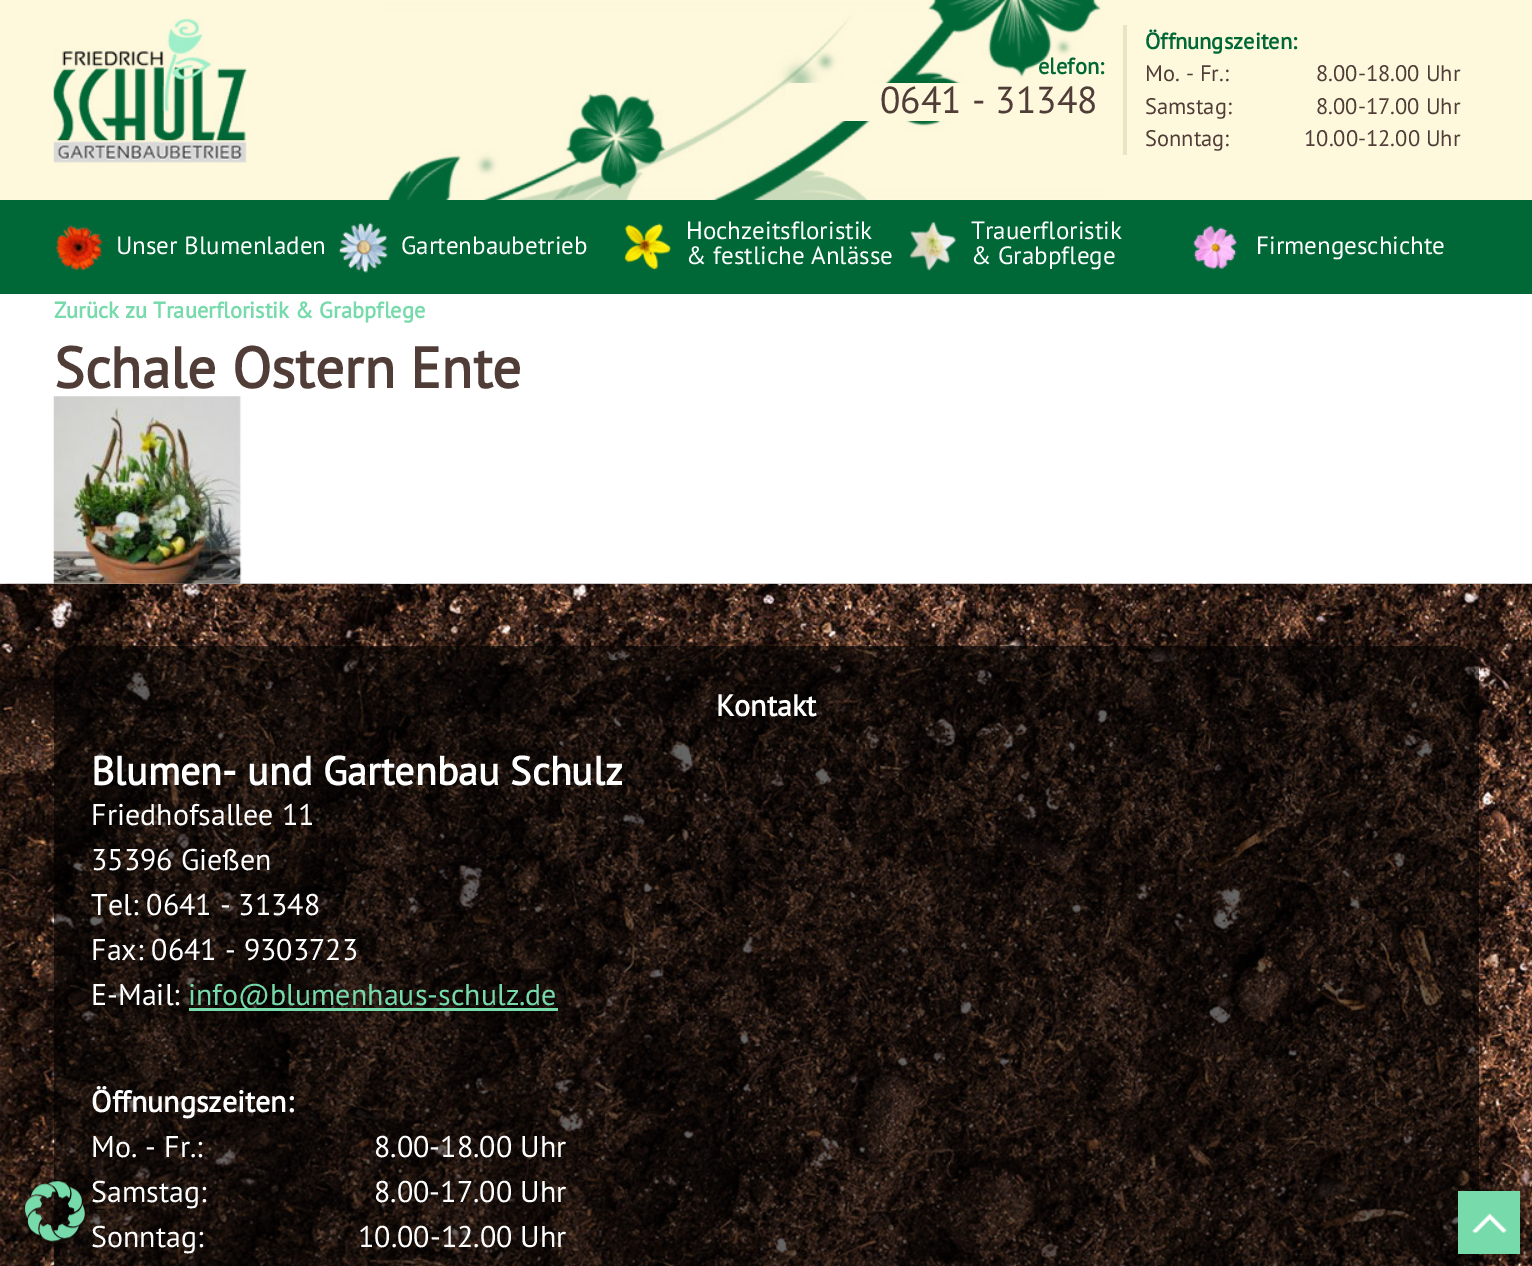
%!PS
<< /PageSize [1532 1266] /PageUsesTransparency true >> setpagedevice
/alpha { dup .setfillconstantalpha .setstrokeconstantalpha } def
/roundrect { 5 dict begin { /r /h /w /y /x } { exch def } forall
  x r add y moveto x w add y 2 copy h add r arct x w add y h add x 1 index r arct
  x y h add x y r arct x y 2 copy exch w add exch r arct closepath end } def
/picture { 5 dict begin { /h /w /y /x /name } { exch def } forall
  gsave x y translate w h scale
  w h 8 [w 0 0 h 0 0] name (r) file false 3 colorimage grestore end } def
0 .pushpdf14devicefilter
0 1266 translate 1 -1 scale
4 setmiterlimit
1 setgray
0 0 1532 1266 rectfill
0.996 0.976 0.863 setrgbcolor
0 0 1532 200 rectfill
(img1.rgb) 385 0 717 200 picture
(img2.rgb) 53 18 194 145 picture
/PTSans-Bold [22.5 0 0 -22.5 0 0] selectfont
0 0.408 0.216 setrgbcolor
1038 74 moveto (elefon:) show
0.996 0.976 0.863 setrgbcolor
785 83 319 38 6 roundrect fill
/PTSans-Regular [37.5 0 0 -37.5 0 0] selectfont
0.318 0.239 0.22 setrgbcolor
880 113 moveto (0641 - 31348) show
0.914 0.898 0.761 setrgbcolor
1123 25 4 130 rectfill
/PTSans-Bold [22.5 0 0 -22.5 0 0] selectfont
0 0.408 0.216 setrgbcolor
1145 49 moveto (Öffnungszeiten:) show
/PTSans-Regular [22.5 0 0 -22.5 0 0] selectfont
0.318 0.239 0.22 setrgbcolor
1145 81 moveto (Mo. - Fr.:) show
1316 81 moveto (8.00-18.00 Uhr) show
1145 114 moveto (Samstag:) show
1316 114 moveto (8.00-17.00 Uhr) show
1145 146 moveto (Sonntag:) show
1304 146 moveto (10.00-12.00 Uhr) show
0 0.408 0.216 setrgbcolor
0 200 1532 94 rectfill
(img3.rgb) 54 224 49 46 picture
/PTSans-Regular [25 0 0 -25 0 0] selectfont
1 setgray
116 254 moveto (Unser Blumenladen) show
(img4.rgb) 338 222 50 51 picture
401 254 moveto (Gartenbaubetrieb) show
(img5.rgb) 623 223 49 47 picture
686 239 moveto (Hochzeitsfloristik) show
686 264 moveto (& festliche Anlässe) show
(img6.rgb) 909 222 48 49 picture
971 239 moveto (Trauerfloristik) show
971 264 moveto (& Grabpflege) show
(img7.rgb) 1193 225 44 45 picture
1256 254 moveto (Firmengeschichte) show
/PTSans-Bold [22.5 0 0 -22.5 0 0] selectfont
0.463 0.855 0.671 setrgbcolor
54 318 moveto (Zurück zu Trauerfloristik & Grabpflege) show
/PTSans-Bold [57.5 0 0 -57.5 0 0] selectfont
0.318 0.239 0.22 setrgbcolor
54 388 moveto (Schale Ostern Ente) show
(img10.rgb) 0 583 1532 683 picture
(img8.rgb) 53 396 189 188 picture
0.6 alpha
0 setgray
54 646 1425 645 25 roundrect fill
1 alpha
(img9.rgb) 24 1181 61 61 picture
/PTSans-Bold [30 0 0 -30 0 0] selectfont
1 setgray
716 716 moveto (Kontakt) show
/PTSans-Bold [40 0 0 -40 0 0] selectfont
91 785 moveto (Blumen- und Gartenbau Schulz) show
/PTSans-Regular [30 0 0 -30 0 0] selectfont
91 825 moveto (Friedhofsallee 11) show
91 870 moveto (35396 Gießen) show
91 915 moveto (Tel: 0641 - 31348) show
91 960 moveto (Fax: 0641 - 9303723) show
91 1005 moveto (E-Mail:) show
0.463 0.855 0.671 setrgbcolor
189 1008 369 3 rectfill
188 1005 moveto (info@blumenhaus-schulz.de) show
/PTSans-Bold [30 0 0 -30 0 0] selectfont
1 setgray
91 1112 moveto (Öffnungszeiten:) show
/PTSans-Regular [30 0 0 -30 0 0] selectfont
91 1157 moveto (Mo. - Fr.:) show
374 1157 moveto (8.00-18.00 Uhr) show
91 1202 moveto (Samstag:) show
374 1202 moveto (8.00-17.00 Uhr) show
91 1247 moveto (Sonntag:) show
358 1247 moveto (10.00-12.00 Uhr) show
0.463 0.855 0.671 setrgbcolor
1458 1191 62 63 rectfill
(img11.rgb) 1472 1213 35 20 picture
.poppdf14devicefilter showpage
